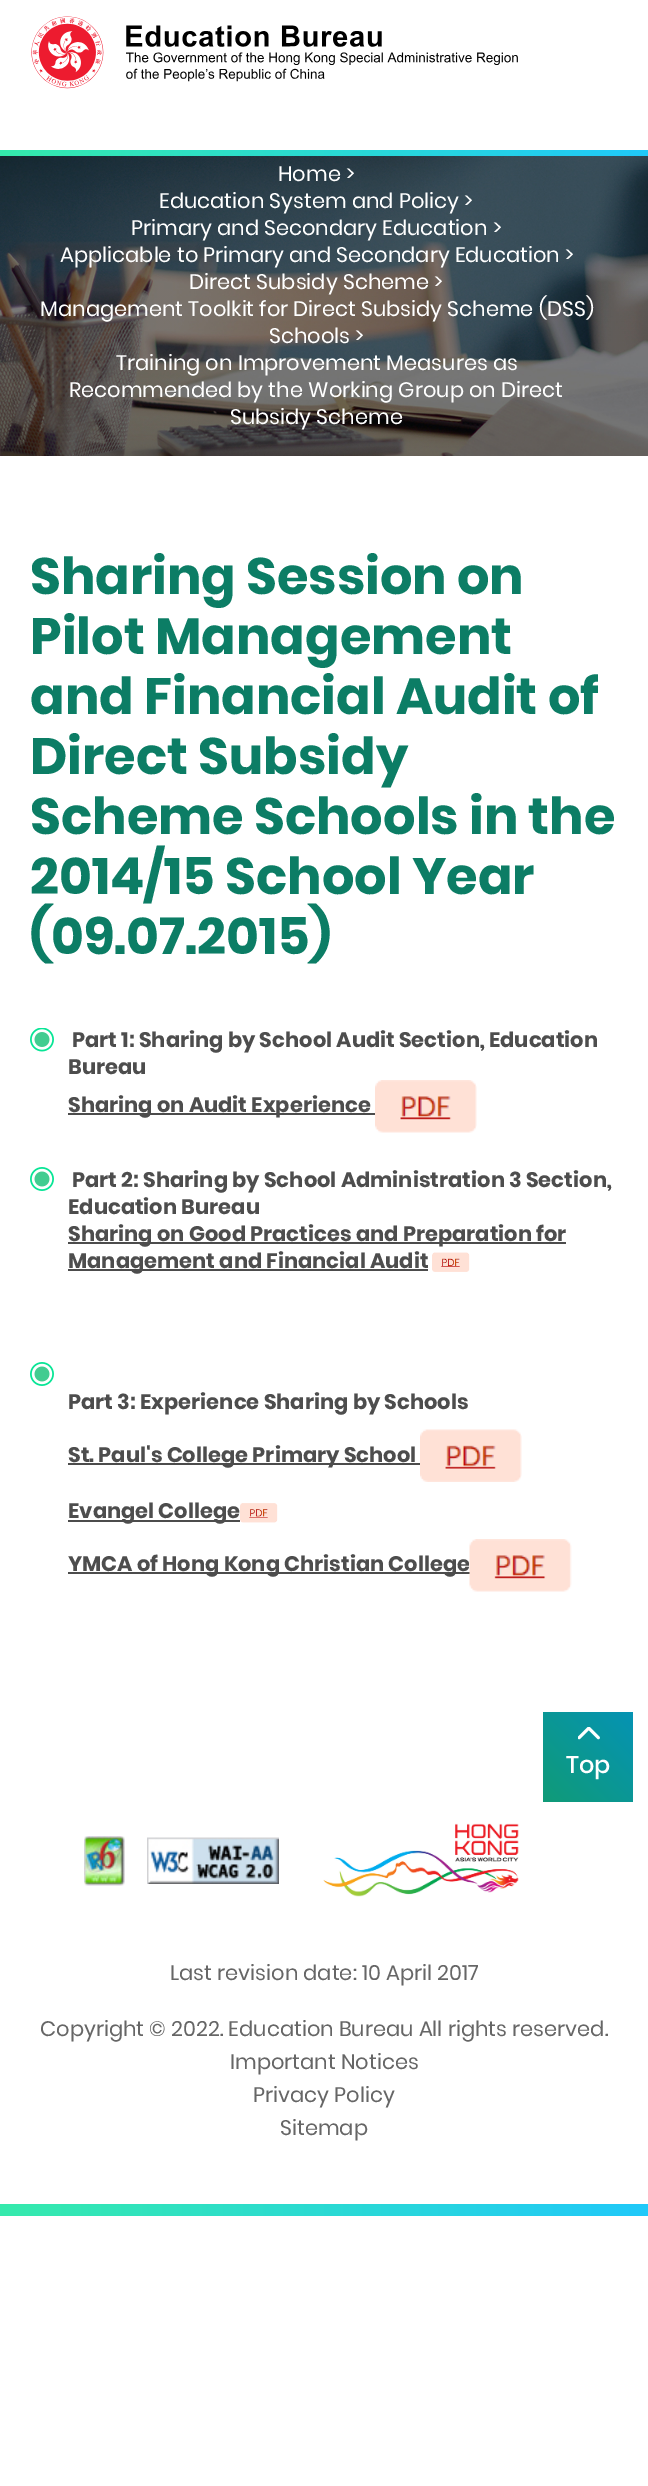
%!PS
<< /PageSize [648 2486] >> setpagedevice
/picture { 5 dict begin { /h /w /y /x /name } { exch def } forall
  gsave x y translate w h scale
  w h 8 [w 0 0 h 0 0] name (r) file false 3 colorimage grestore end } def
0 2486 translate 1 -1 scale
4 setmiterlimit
1 setgray
0 0 648 2486 rectfill
(img1.rgb) 31 16 487 73 picture
gsave newpath 0 150 moveto 648 150 lineto 648 156 lineto 0 156 lineto closepath clip newpath
<< /ShadingType 2 /ColorSpace /DeviceRGB /Coords [0 153 648 153] /Extend [true true] /Function << /FunctionType 2 /Domain [0 1] /C0 [0.208 0.918 0.675] /C1 [0.125 0.788 0.98] /N 1 >> >> shfill grestore
(img2.rgb) 0 156 648 300 picture
/Poppins-Regular [21 0 0 -21 0 0] selectfont
278 181 moveto (Home >) show
159 208 moveto (Education System and Policy >) show
131 235 moveto (Primary and Secondary Education >) show
60 262 moveto (Applicable to Primary and Secondary Education >) show
189 289 moveto (Direct Subsidy Scheme >) show
40 316 moveto (Management Toolkit for Direct Subsidy Scheme \(DSS\)) show
269 343 moveto (Schools >) show
116 370 moveto (Training on Improvement Measures as) show
69 397 moveto (Recommended by the Working Group on Direct) show
230 424 moveto (Subsidy Scheme) show
/Poppins-Bold [51 0 0 -51 0 0] selectfont
0.047 0.49 0.396 setrgbcolor
30 594 moveto (Sharing Session on) show
30 654 moveto (Pilot Management) show
30 714 moveto (and Financial Audit of) show
30 774 moveto (Direct Subsidy) show
30 834 moveto (Scheme Schools in the) show
30 894 moveto (2014/15 School Year) show
30 954 moveto (\(09.07.2015\)) show
(img3.rgb) 30 1028 24 24 picture
/Poppins-Bold [21 0 0 -21 0 0] selectfont
0.302 setgray
72 1047 moveto (Part 1: Sharing by School Audit Section, Education) show
68 1074 moveto (Bureau) show
0.298 setgray
68 1113 307 2 rectfill
0.302 setgray
68 1112 moveto (Sharing on Audit Experience) show
(img4.rgb) 375 1080 102 53 picture
(img5.rgb) 30 1167 24 24 picture
72 1187 moveto (Part 2: Sharing by School Administration 3 Section,) show
68 1214 moveto (Education Bureau) show
0.298 setgray
68 1242 498 2 rectfill
0.302 setgray
68 1241 moveto (Sharing on Good Practices and Preparation for) show
0.298 setgray
68 1269 360 2 rectfill
0.302 setgray
68 1268 moveto (Management and Financial Audit) show
(img6.rgb) 432 1252 38 20 picture
(img5.rgb) 30 1362 24 24 picture
68 1409 moveto (Part 3: Experience Sharing by Schools) show
0.298 setgray
68 1463 352 2 rectfill
0.302 setgray
68 1462 moveto (St. Paul's College Primary School) show
(img7.rgb) 420 1429 102 53 picture
0.298 setgray
68 1520 172 2 rectfill
0.302 setgray
68 1518 moveto (Evangel College) show
(img8.rgb) 240 1503 38 20 picture
0.298 setgray
68 1572 402 2 rectfill
0.302 setgray
68 1571 moveto (YMCA of Hong Kong Christian College) show
(img9.rgb) 469 1539 103 53 picture
gsave newpath 543 1712 moveto 633 1712 lineto 633 1802 lineto 543 1802 lineto closepath clip newpath
<< /ShadingType 2 /ColorSpace /DeviceRGB /Coords [543 1802 633 1712] /Extend [true true] /Function << /FunctionType 2 /Domain [0 1] /C0 [0.063 0.608 0.467] /C1 [0.02 0.576 0.706] /N 1 >> >> shfill grestore
(img10.rgb) 578 1727 22 13 picture
/Poppins-Medium [24 0 0 -24 0 0] selectfont
1 setgray
566 1773 moveto (Top) show
(img11.rgb) 84 1836 41 50 picture
(img12.rgb) 147 1837 132 47 picture
(img13.rgb) 323 1823 196 74 picture
/Poppins-Regular [21 0 0 -21 0 0] selectfont
0.4 setgray
170 1980 moveto (Last revision date: 10 April 2017) show
40 2036 moveto (Copyright © 2022. Education Bureau All rights reserved.) show
230 2069 moveto (Important Notices) show
253 2102 moveto (Privacy Policy) show
280 2135 moveto (Sitemap) show
gsave newpath 0 2204 moveto 648 2204 lineto 648 2216 lineto 0 2216 lineto closepath clip newpath
<< /ShadingType 2 /ColorSpace /DeviceRGB /Coords [0 2210 648 2210] /Extend [true true] /Function << /FunctionType 2 /Domain [0 1] /C0 [0.208 0.918 0.675] /C1 [0.125 0.788 0.98] /N 1 >> >> shfill grestore
showpage
